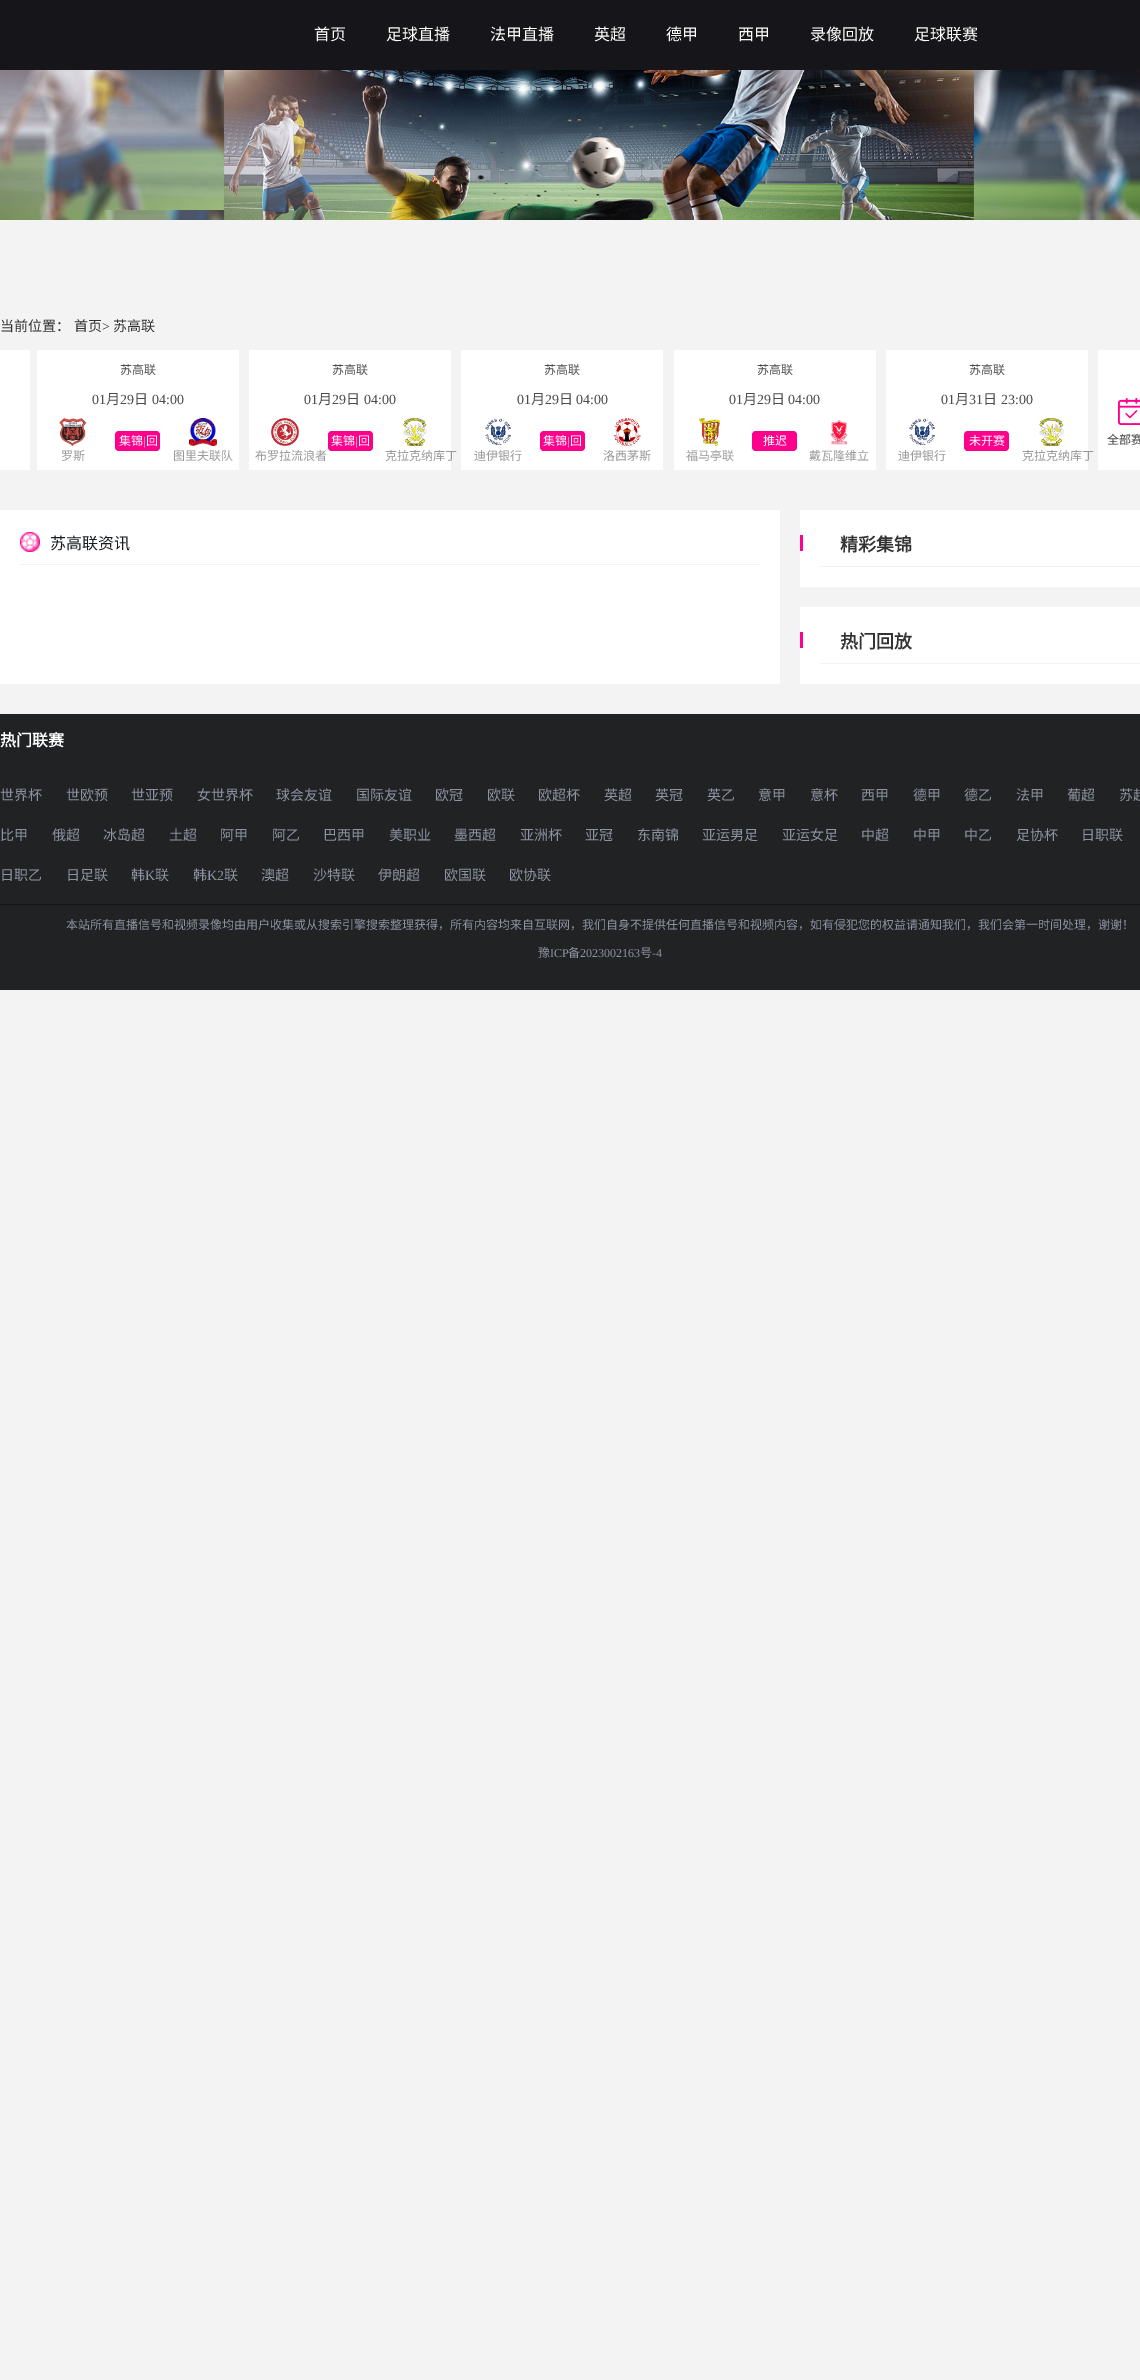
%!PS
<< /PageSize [1140 2380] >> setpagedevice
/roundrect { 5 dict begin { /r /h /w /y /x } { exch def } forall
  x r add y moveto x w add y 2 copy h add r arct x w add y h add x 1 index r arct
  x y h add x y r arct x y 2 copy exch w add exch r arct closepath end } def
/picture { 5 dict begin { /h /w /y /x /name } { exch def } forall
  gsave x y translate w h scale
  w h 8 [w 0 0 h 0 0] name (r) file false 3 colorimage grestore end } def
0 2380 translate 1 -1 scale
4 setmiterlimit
0.953 setgray
0 0 1140 2380 rectfill
0.086 0.086 0.102 setrgbcolor
0 0 1140 70 rectfill
/NotoSansCJKSC-Regular [16 0 0 -16 0 0] selectfont
1 setgray
314 40 moveto (首页) show
386 40 moveto (足球直播) show
490 40 moveto (法甲直播) show
594 40 moveto (英超) show
666 40 moveto (德甲) show
738 40 moveto (西甲) show
810 40 moveto (录像回放) show
914 40 moveto (足球联赛) show
(img1.rgb) 0 70 1140 150 picture
/NotoSansCJKSC-Regular [14 0 0 -14 0 0] selectfont
0.2 setgray
0 331 moveto (当前位置：) show
74 331 moveto (首页) show
/LiberationSerif-Regular [14 0 0 -14 0 0] selectfont
102 331 moveto (>) show
/NotoSansCJKSC-Regular [14 0 0 -14 0 0] selectfont
113 331 moveto (苏高联) show
1 setgray
0 350 30 120 rectfill
37 350 202 120 rectfill
/NotoSansCJKSC-Regular [12 0 0 -12 0 0] selectfont
0.298 0.294 0.29 setrgbcolor
120 374 moveto (苏高联) show
/LiberationSerif-Regular [14 0 0 -14 0 0] selectfont
92 404 moveto (01) show
/NotoSansCJKSC-Regular [14 0 0 -14 0 0] selectfont
106 404 moveto (月) show
/LiberationSerif-Regular [14 0 0 -14 0 0] selectfont
120 404 moveto (29) show
/NotoSansCJKSC-Regular [14 0 0 -14 0 0] selectfont
134 404 moveto (日) show
/LiberationSerif-Regular [14 0 0 -14 0 0] selectfont
152 404 moveto (04:00) show
1 0 0.549 setrgbcolor
115 431 45 20 4 roundrect fill
/NotoSansCJKSC-Regular [12 0 0 -12 0 0] selectfont
1 setgray
119 445 moveto (集锦 回) show
/LiberationSerif-Regular [12 0 0 -12 0 0] selectfont
143 445 moveto (|) show
(img2.rgb) 59 418 28 28 picture
/NotoSansCJKSC-Regular [12 0 0 -12 0 0] selectfont
0.6 setgray
61 460 moveto (罗斯) show
(img3.rgb) 189 418 28 28 picture
173 460 moveto (图里夫联队) show
1 setgray
249 350 202 120 rectfill
0.298 0.294 0.29 setrgbcolor
332 374 moveto (苏高联) show
/LiberationSerif-Regular [14 0 0 -14 0 0] selectfont
304 404 moveto (01) show
/NotoSansCJKSC-Regular [14 0 0 -14 0 0] selectfont
318 404 moveto (月) show
/LiberationSerif-Regular [14 0 0 -14 0 0] selectfont
332 404 moveto (29) show
/NotoSansCJKSC-Regular [14 0 0 -14 0 0] selectfont
346 404 moveto (日) show
/LiberationSerif-Regular [14 0 0 -14 0 0] selectfont
364 404 moveto (04:00) show
1 0 0.549 setrgbcolor
328 431 45 20 4 roundrect fill
/NotoSansCJKSC-Regular [12 0 0 -12 0 0] selectfont
1 setgray
331 445 moveto (集锦 回) show
/LiberationSerif-Regular [12 0 0 -12 0 0] selectfont
355 445 moveto (|) show
(img4.rgb) 271 418 28 28 picture
/NotoSansCJKSC-Regular [12 0 0 -12 0 0] selectfont
0.6 setgray
255 460 moveto (布罗拉流浪者) show
(img5.rgb) 403 418 24 28 picture
385 460 moveto (克拉克纳库丁) show
1 setgray
461 350 202 120 rectfill
0.298 0.294 0.29 setrgbcolor
544 374 moveto (苏高联) show
/LiberationSerif-Regular [14 0 0 -14 0 0] selectfont
517 404 moveto (01) show
/NotoSansCJKSC-Regular [14 0 0 -14 0 0] selectfont
531 404 moveto (月) show
/LiberationSerif-Regular [14 0 0 -14 0 0] selectfont
545 404 moveto (29) show
/NotoSansCJKSC-Regular [14 0 0 -14 0 0] selectfont
559 404 moveto (日) show
/LiberationSerif-Regular [14 0 0 -14 0 0] selectfont
576 404 moveto (04:00) show
1 0 0.549 setrgbcolor
540 431 45 20 4 roundrect fill
/NotoSansCJKSC-Regular [12 0 0 -12 0 0] selectfont
1 setgray
543 445 moveto (集锦 回) show
/LiberationSerif-Regular [12 0 0 -12 0 0] selectfont
567 445 moveto (|) show
(img6.rgb) 485 418 26 28 picture
/NotoSansCJKSC-Regular [12 0 0 -12 0 0] selectfont
0.6 setgray
474 460 moveto (迪伊银行) show
(img7.rgb) 613 418 28 28 picture
603 460 moveto (洛西茅斯) show
1 setgray
674 350 202 120 rectfill
0.298 0.294 0.29 setrgbcolor
757 374 moveto (苏高联) show
/LiberationSerif-Regular [14 0 0 -14 0 0] selectfont
729 404 moveto (01) show
/NotoSansCJKSC-Regular [14 0 0 -14 0 0] selectfont
743 404 moveto (月) show
/LiberationSerif-Regular [14 0 0 -14 0 0] selectfont
757 404 moveto (29) show
/NotoSansCJKSC-Regular [14 0 0 -14 0 0] selectfont
771 404 moveto (日) show
/LiberationSerif-Regular [14 0 0 -14 0 0] selectfont
788 404 moveto (04:00) show
1 0 0.549 setrgbcolor
752 431 45 20 4 roundrect fill
/NotoSansCJKSC-Regular [12 0 0 -12 0 0] selectfont
1 setgray
763 445 moveto (推迟) show
(img8.rgb) 699 418 21 28 picture
0.6 setgray
686 460 moveto (福马亭联) show
(img9.rgb) 830 420 18 25 picture
809 460 moveto (戴瓦隆维立) show
1 setgray
886 350 202 120 rectfill
0.298 0.294 0.29 setrgbcolor
969 374 moveto (苏高联) show
/LiberationSerif-Regular [14 0 0 -14 0 0] selectfont
941 404 moveto (01) show
/NotoSansCJKSC-Regular [14 0 0 -14 0 0] selectfont
955 404 moveto (月) show
/LiberationSerif-Regular [14 0 0 -14 0 0] selectfont
969 404 moveto (31) show
/NotoSansCJKSC-Regular [14 0 0 -14 0 0] selectfont
983 404 moveto (日) show
/LiberationSerif-Regular [14 0 0 -14 0 0] selectfont
1001 404 moveto (23:00) show
1 0 0.549 setrgbcolor
964 431 45 20 4 roundrect fill
/NotoSansCJKSC-Regular [12 0 0 -12 0 0] selectfont
1 setgray
969 445 moveto (未开赛) show
(img10.rgb) 909 418 26 28 picture
0.6 setgray
898 460 moveto (迪伊银行) show
(img11.rgb) 1039 418 25 28 picture
1022 460 moveto (克拉克纳库丁) show
1 setgray
1098 350 42 120 rectfill
(img12.rgb) 1118 398 22 27 picture
0.267 setgray
1107 444 moveto (全部赛) show
1 setgray
0 510 780 174 rectfill
(img13.rgb) 20 532 20 20 picture
/NotoSansCJKSC-Regular [16 0 0 -16 0 0] selectfont
0.098 0.11 0.133 setrgbcolor
50 549 moveto (苏高联资讯) show
0.933 0.953 0.973 setrgbcolor
20 564 740 1 rectfill
1 setgray
800 510 340 77 rectfill
1 0 0.569 setrgbcolor
800 535 3 16 rectfill
/NotoSansCJKSC-Bold [18 0 0 -18 0 0] selectfont
0.2 setgray
840 551 moveto (精彩集锦) show
0.933 0.953 0.973 setrgbcolor
820 566 320 1 rectfill
1 setgray
800 607 340 77 rectfill
1 0 0.569 setrgbcolor
800 632 3 16 rectfill
0.2 setgray
840 648 moveto (热门回放) show
0.933 0.953 0.973 setrgbcolor
820 663 320 1 rectfill
0.129 0.133 0.141 setrgbcolor
0 714 1140 276 rectfill
/NotoSansCJKSC-Bold [16 0 0 -16 0 0] selectfont
1 setgray
0 746 moveto (热门联赛) show
0.086 0.086 0.09 setrgbcolor
0 904 1140 1 rectfill
/NotoSansCJKSC-Regular [14 0 0 -14 0 0] selectfont
0.553 0.576 0.631 setrgbcolor
0 800 moveto (世界杯) show
66 800 moveto (世欧预) show
131 800 moveto (世亚预) show
197 800 moveto (女世界杯) show
276 800 moveto (球会友谊) show
356 800 moveto (国际友谊) show
435 800 moveto (欧冠) show
487 800 moveto (欧联) show
538 800 moveto (欧超杯) show
604 800 moveto (英超) show
655 800 moveto (英冠) show
707 800 moveto (英乙) show
758 800 moveto (意甲) show
810 800 moveto (意杯) show
861 800 moveto (西甲) show
913 800 moveto (德甲) show
964 800 moveto (德乙) show
1016 800 moveto (法甲) show
1067 800 moveto (葡超) show
1119 800 moveto (苏超) show
0 840 moveto (比甲) show
52 840 moveto (俄超) show
103 840 moveto (冰岛超) show
169 840 moveto (土超) show
220 840 moveto (阿甲) show
272 840 moveto (阿乙) show
323 840 moveto (巴西甲) show
389 840 moveto (美职业) show
454 840 moveto (墨西超) show
520 840 moveto (亚洲杯) show
585 840 moveto (亚冠) show
637 840 moveto (东南锦) show
702 840 moveto (亚运男足) show
782 840 moveto (亚运女足) show
861 840 moveto (中超) show
913 840 moveto (中甲) show
964 840 moveto (中乙) show
1016 840 moveto (足协杯) show
1081 840 moveto (日职联) show
0 880 moveto (日职乙) show
66 880 moveto (日足联) show
131 880 moveto (韩) show
/LiberationSerif-Regular [14 0 0 -14 0 0] selectfont
145 880 moveto (K) show
/NotoSansCJKSC-Regular [14 0 0 -14 0 0] selectfont
155 880 moveto (联) show
193 880 moveto (韩) show
/LiberationSerif-Regular [14 0 0 -14 0 0] selectfont
207 880 moveto (K2) show
/NotoSansCJKSC-Regular [14 0 0 -14 0 0] selectfont
224 880 moveto (联) show
261 880 moveto (澳超) show
313 880 moveto (沙特联) show
378 880 moveto (伊朗超) show
444 880 moveto (欧国联) show
509 880 moveto (欧协联) show
/NotoSansCJKSC-Regular [12 0 0 -12 0 0] selectfont
66 929 moveto (本站所有直播信号和视频录像均由用户收集或从搜索引擎搜索整理获得，所有内容均来自互联网，我们自身不提供任何直播信号和视频内容，如有侵犯您的权益请通知我们，我们会第一时间处理，谢谢！) show
538 957 moveto (豫) show
/LiberationSerif-Regular [12 0 0 -12 0 0] selectfont
550 957 moveto (ICP) show
/NotoSansCJKSC-Regular [12 0 0 -12 0 0] selectfont
568 957 moveto (备) show
/LiberationSerif-Regular [12 0 0 -12 0 0] selectfont
580 957 moveto (2023002163) show
/NotoSansCJKSC-Regular [12 0 0 -12 0 0] selectfont
640 957 moveto (号) show
/LiberationSerif-Regular [12 0 0 -12 0 0] selectfont
652 957 moveto (-4) show
showpage
